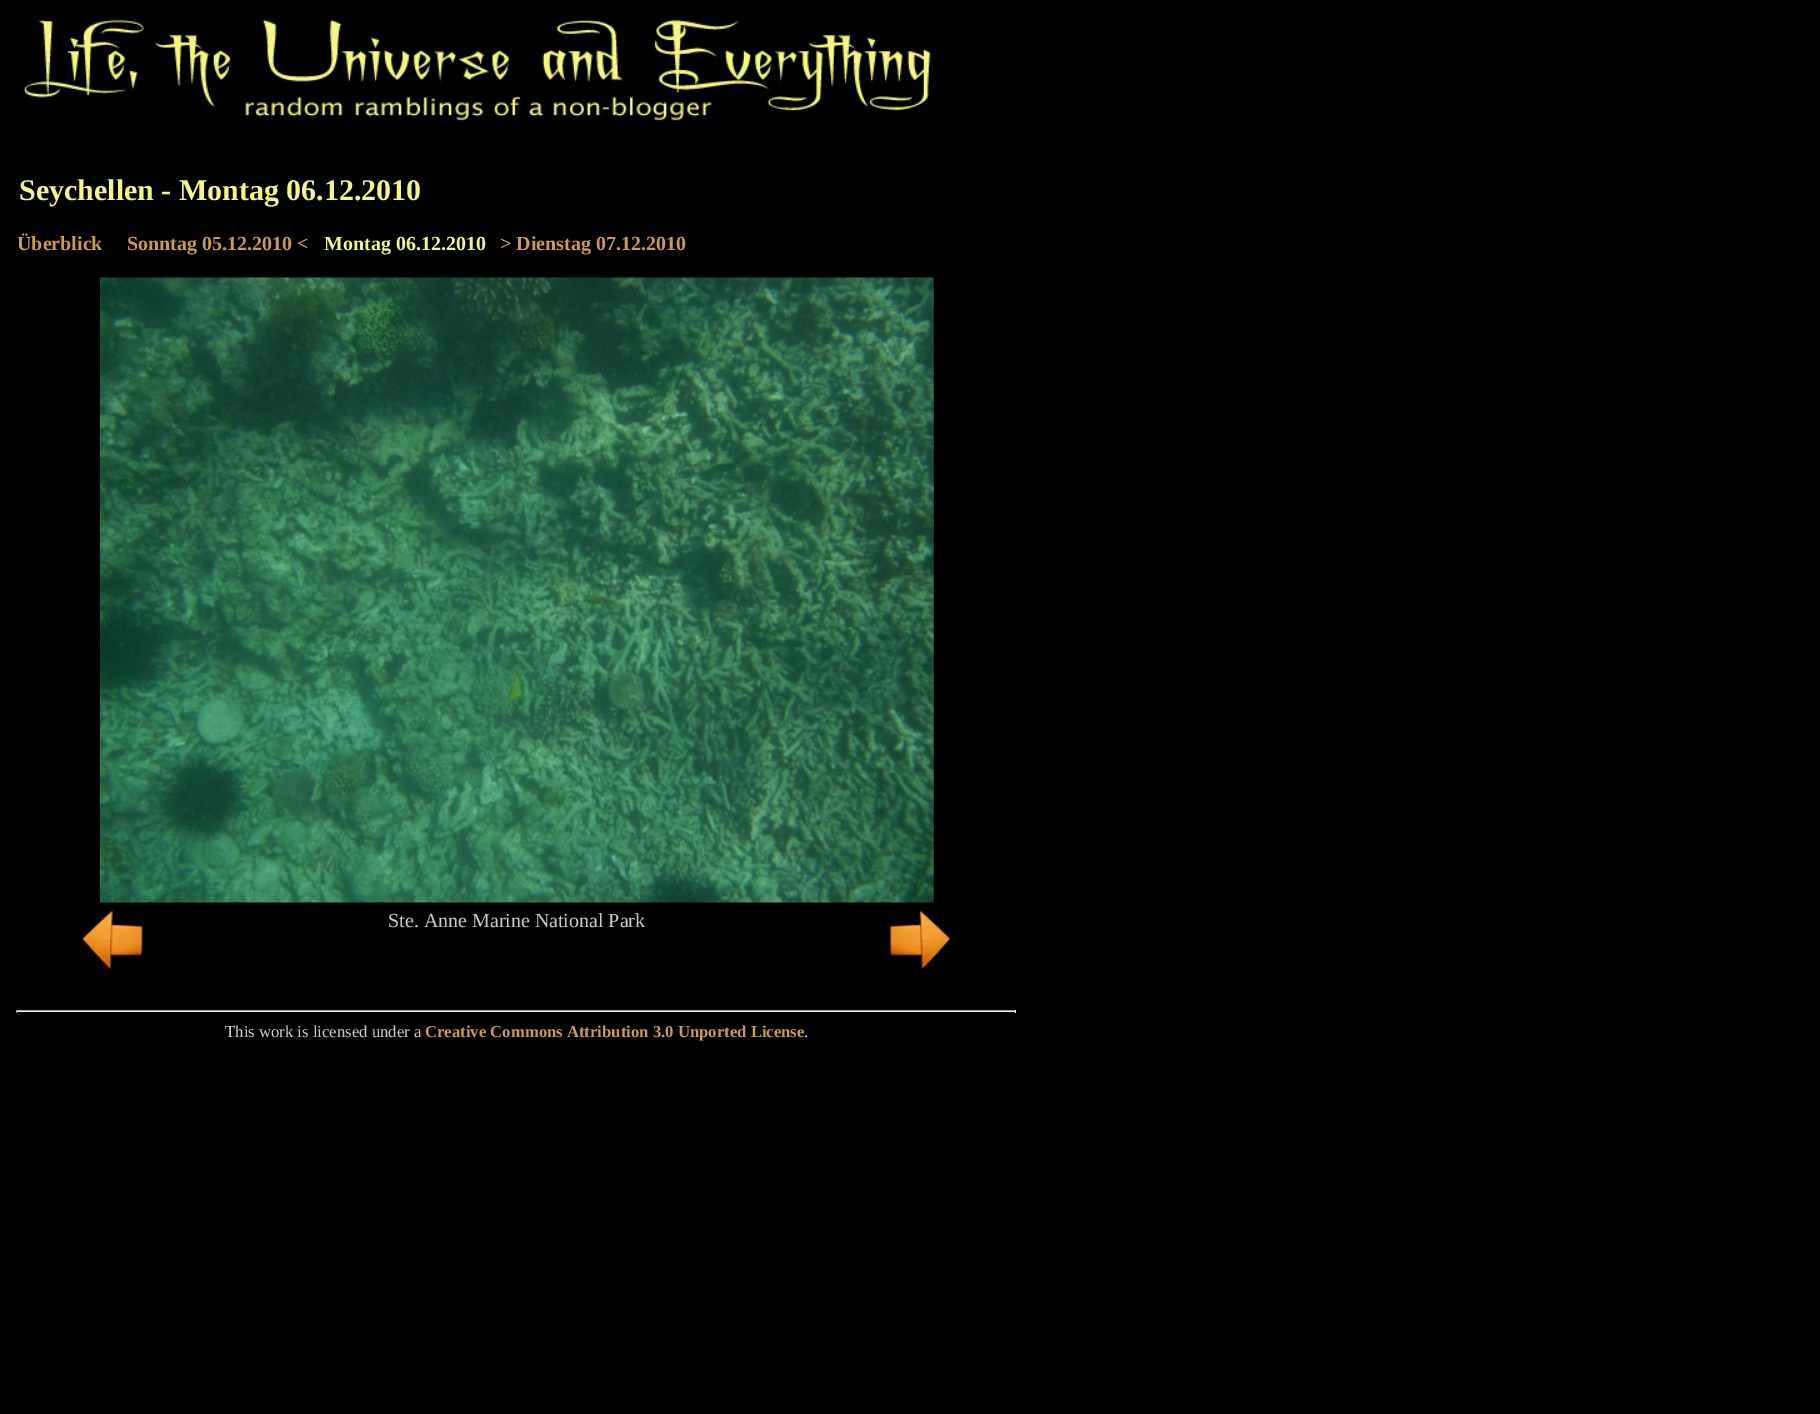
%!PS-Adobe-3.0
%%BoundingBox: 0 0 1820 1414
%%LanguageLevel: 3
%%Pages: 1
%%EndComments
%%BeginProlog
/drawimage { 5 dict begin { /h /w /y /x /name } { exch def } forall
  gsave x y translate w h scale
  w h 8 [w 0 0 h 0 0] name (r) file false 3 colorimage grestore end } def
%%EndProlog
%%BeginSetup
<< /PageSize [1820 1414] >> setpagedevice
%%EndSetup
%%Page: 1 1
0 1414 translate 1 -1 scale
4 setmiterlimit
0 setgray
0 0 1820 1414 rectfill
(images/1.raw) 23 19 908 102 drawimage
(images/2.raw) 100 277 834 626 drawimage
(images/3.raw) 82 910 61 59 drawimage
(images/4.raw) 889 910 62 59 drawimage
0.624 setgray
16 1010 1000 1 rectfill
0.933 setgray
1015 1010 1 3 rectfill
16 1011 1000 1 rectfill
0.624 setgray
16 1010 1 3 rectfill
/LiberationSerif-Bold [30 0 0 -30 0 0] selectfont
0.961 0.965 0.518 setrgbcolor
19 200 moveto (Seychellen - Montag 06.12.2010) show
/LiberationSerif-Bold [20 0 0 -20 0 0] selectfont
0.796 0.612 0.29 setrgbcolor
17 250 moveto (Überblick) show
127 250 moveto (Sonntag 05.12.2010 <) show
0.961 0.965 0.518 setrgbcolor
324 250 moveto (Montag 06.12.2010) show
0.796 0.612 0.29 setrgbcolor
500 250 moveto (> Dienstag 07.12.2010) show
/LiberationSerif-Regular [20 0 0 -20 0 0] selectfont
0.8 setgray
388 927 moveto (Ste. Anne Marine National Park) show
/LiberationSerif-Regular [16.7 0 0 -16.7 0 0] selectfont
225 1037 moveto (This work is licensed under a) show
/LiberationSerif-Bold [16.7 0 0 -16.7 0 0] selectfont
0.796 0.612 0.29 setrgbcolor
425 1037 moveto (Creative Commons Attribution 3.0 Unported License) show
/LiberationSerif-Regular [16.7 0 0 -16.7 0 0] selectfont
0.8 setgray
804 1037 moveto (.) show
showpage
%%EOF
